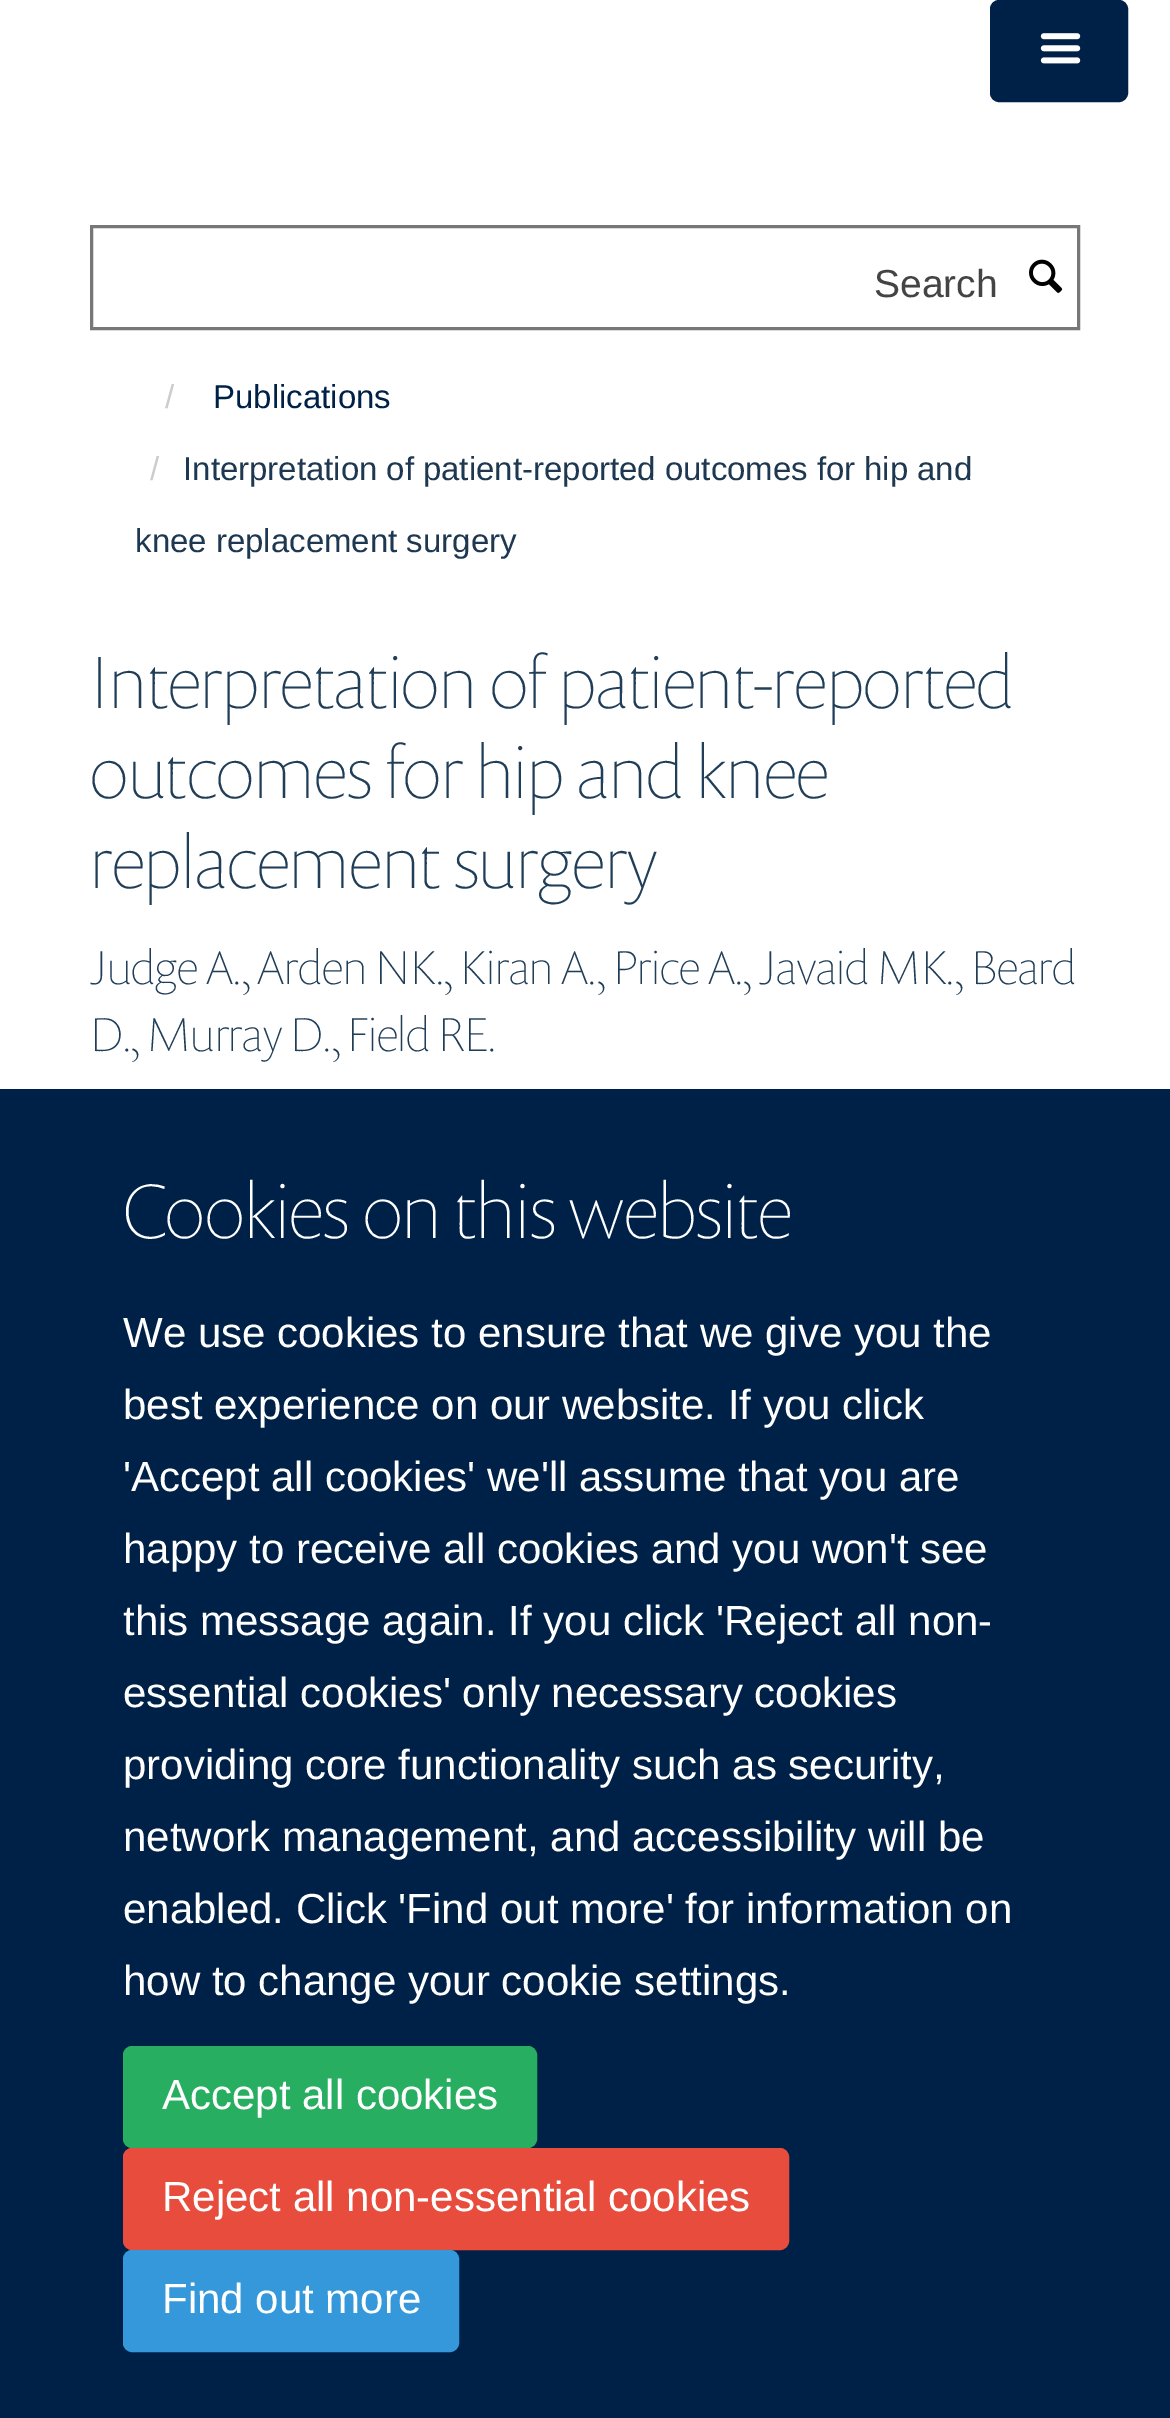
%!PS-Adobe-3.0
%%BoundingBox: 0 0 1170 2418
%%LanguageLevel: 3
%%Pages: 1
%%EndComments
%%BeginProlog
/rrect { 5 dict begin { /r /h /w /y /x } { exch def } forall
  x r add y moveto x w add y 2 copy h add r arct x w add y h add x 1 index r arct
  x y h add x y r arct x y 2 copy exch w add exch r arct closepath end } def
/drawimage { 5 dict begin { /h /w /y /x /name } { exch def } forall
  gsave x y translate w h scale
  w h 8 [w 0 0 h 0 0] name (r) file false 3 colorimage grestore end } def
%%EndProlog
%%BeginSetup
<< /PageSize [1170 2418] >> setpagedevice
%%EndSetup
%%Page: 1 1
0 2418 translate 1 -1 scale
4 setmiterlimit
1 setgray
0 0 1170 2418 rectfill
0 0.129 0.278 setrgbcolor
991.5 1.5 135 99 7.5 rrect gsave fill grestore
3 setlinewidth
stroke
(images/1.raw) 1040 33 41 31 drawimage
0.467 setgray
91.5 226.5 987 102 rectstroke
(images/2.raw) 1029 259 34 34 drawimage
0 0.129 0.278 setrgbcolor
0 1089 1170 1329 rectfill
0.153 0.682 0.376 setrgbcolor
124.5 2047.5 411 99 7.5 rrect gsave fill grestore
stroke
0.906 0.298 0.235 setrgbcolor
124.5 2149.5 663 99 7.5 rrect gsave fill grestore
stroke
0.204 0.596 0.859 setrgbcolor
124.5 2251.5 333 99 7.5 rrect gsave fill grestore
stroke
/LiberationSans-Regular [39 0 0 -39 0 0] selectfont
0.267 setgray
874 297 moveto (Search) show
/LiberationSans-Regular [33 0 0 -33 0 0] selectfont
0.8 setgray
165 408 moveto (/) show
0 0.129 0.278 setrgbcolor
213 408 moveto (Publications) show
0.8 setgray
150 480 moveto (/) show
0.114 0.22 0.314 setrgbcolor
183 480 moveto -0.25 0 32 (Interpretation of patient-reported outcomes for hip and) widthshow
135 552 moveto (knee replacement surgery) show
/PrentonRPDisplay-Thin [75 0 0 -75 0 0] selectfont
0.125 0.243 0.345 setrgbcolor
90 708 moveto (Interpretation of patient-reported) show
90 798 moveto (outcomes for hip and knee) show
90 888 moveto (replacement surgery) show
/PrentonRPDisplay-Thin [48 0 0 -48 0 0] selectfont
90 984 moveto (Judge A., Arden NK., Kiran A., Price A., Javaid MK., Beard) show
90 1051 moveto (D., Murray D., Field RE.) show
/PrentonRPDisplay-Thin [78 0 0 -78 0 0] selectfont
1 setgray
123 1238 moveto (Cookies on this website) show
/LiberationSans-Regular [42 0 0 -42 0 0] selectfont
123 1347 moveto (We use cookies to ensure that we give you the) show
123 1419 moveto (best experience on our website. If you click) show
123 1491 moveto ('Accept all cookies' we'll assume that you are) show
123 1563 moveto (happy to receive all cookies and you won't see) show
123 1635 moveto (this message again. If you click 'Reject all non-) show
123 1707 moveto (essential cookies' only necessary cookies) show
123 1779 moveto (providing core functionality such as security,) show
123 1851 moveto (network management, and accessibility will be) show
123 1923 moveto (enabled. Click 'Find out more' for information on) show
123 1995 moveto (how to change your cookie settings.) show
162 2109 moveto (Accept all cookies) show
162 2211 moveto (Reject all non-essential cookies) show
162 2313 moveto (Find out more) show
showpage
%%EOF
